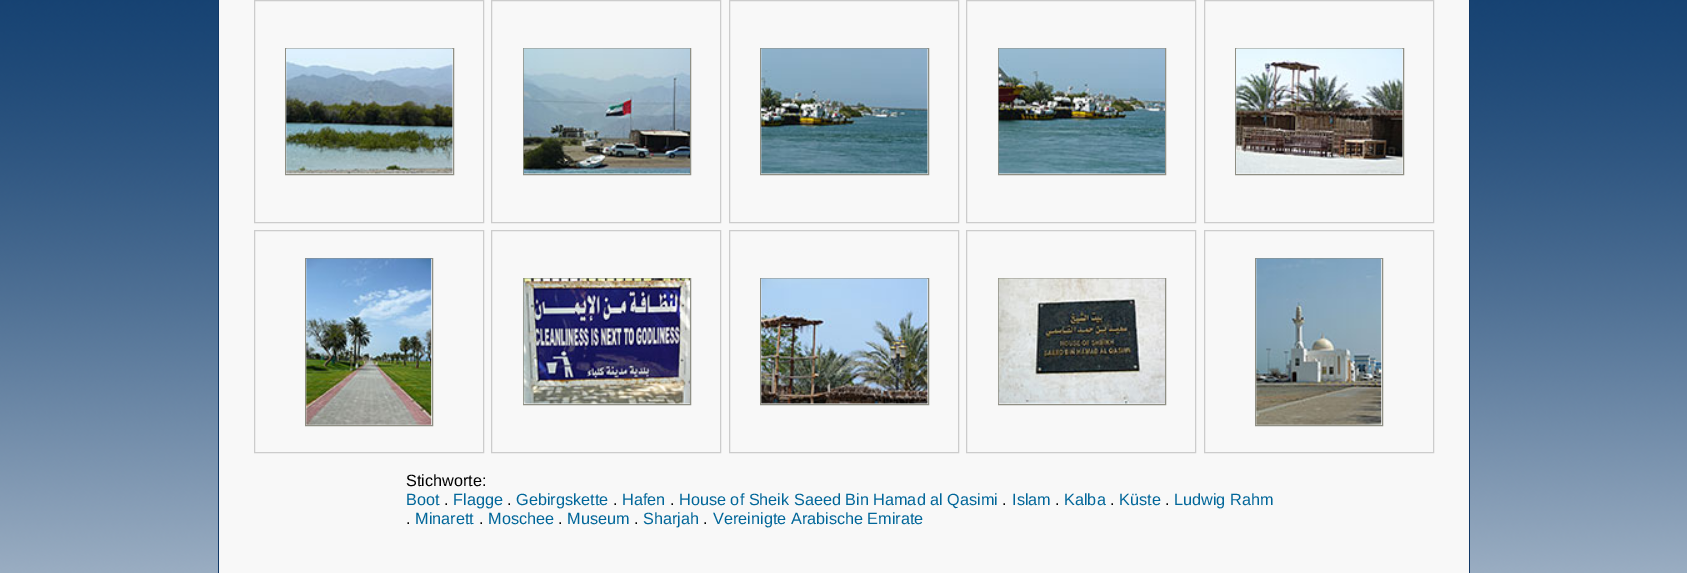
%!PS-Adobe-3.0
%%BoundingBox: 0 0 1687 573
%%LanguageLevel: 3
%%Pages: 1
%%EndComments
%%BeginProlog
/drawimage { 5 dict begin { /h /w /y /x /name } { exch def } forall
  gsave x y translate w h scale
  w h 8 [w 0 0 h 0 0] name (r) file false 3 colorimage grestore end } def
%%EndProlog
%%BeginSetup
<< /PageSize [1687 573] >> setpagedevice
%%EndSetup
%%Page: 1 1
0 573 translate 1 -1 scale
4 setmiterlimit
1 setgray
0 0 1687 573 rectfill
(images/1.raw) 0 0 1687 573 drawimage
0.973 setgray
219 0 1250 573 rectfill
0.067 0.22 0.404 setrgbcolor
1469 0 1 573 rectfill
218 0 1 573 rectfill
0.8 setgray
254.5 0.5 229 222 rectstroke
0.561 0.561 0.518 setrgbcolor
285.5 48.5 168 126 rectstroke
(images/2.raw) 286 48 167 126 drawimage
0.8 setgray
491.5 0.5 229 222 rectstroke
0.561 0.561 0.518 setrgbcolor
523.5 48.5 167 126 rectstroke
(images/3.raw) 523 48 167 126 drawimage
0.8 setgray
729.5 0.5 229 222 rectstroke
0.561 0.561 0.518 setrgbcolor
760.5 48.5 168 126 rectstroke
(images/4.raw) 761 48 167 126 drawimage
0.8 setgray
966.5 0.5 229 222 rectstroke
0.561 0.561 0.518 setrgbcolor
998.5 48.5 167 126 rectstroke
(images/5.raw) 998 48 167 126 drawimage
0.8 setgray
1204.5 0.5 229 222 rectstroke
0.561 0.561 0.518 setrgbcolor
1235.5 48.5 168 126 rectstroke
(images/6.raw) 1236 48 167 126 drawimage
0.8 setgray
254.5 230.5 229 222 rectstroke
0.561 0.561 0.518 setrgbcolor
305.5 258.5 127 167 rectstroke
(images/7.raw) 306 258 126 167 drawimage
0.8 setgray
491.5 230.5 229 222 rectstroke
0.561 0.561 0.518 setrgbcolor
523.5 278.5 167 126 rectstroke
(images/8.raw) 523 278 167 126 drawimage
0.8 setgray
729.5 230.5 229 222 rectstroke
0.561 0.561 0.518 setrgbcolor
760.5 278.5 168 126 rectstroke
(images/9.raw) 761 278 167 126 drawimage
0.8 setgray
966.5 230.5 229 222 rectstroke
0.561 0.561 0.518 setrgbcolor
998.5 278.5 167 126 rectstroke
(images/10.raw) 998 278 167 126 drawimage
0.8 setgray
1204.5 230.5 229 222 rectstroke
0.561 0.561 0.518 setrgbcolor
1255.5 258.5 127 167 rectstroke
(images/11.raw) 1256 258 126 167 drawimage
/LiberationSans-Regular [16.25 0 0 -16.25 0 0] selectfont
0 setgray
406 486 moveto (Stichworte:) show
0 0.4 0.6 setrgbcolor
406 505 moveto (Boot) show
0 setgray
444 505 moveto (.) show
0 0.4 0.6 setrgbcolor
453 505 moveto (Flagge) show
0 setgray
507 505 moveto (.) show
0 0.4 0.6 setrgbcolor
516 505 moveto (Gebirgskette) show
0 setgray
613 505 moveto (.) show
0 0.4 0.6 setrgbcolor
622 505 moveto (Hafen) show
0 setgray
670 505 moveto (.) show
0 0.4 0.6 setrgbcolor
679 505 moveto (House of Sheik Saeed Bin Hamad al Qasimi) show
0 setgray
1002 505 moveto (.) show
0 0.4 0.6 setrgbcolor
1012 505 moveto (Islam) show
0 setgray
1055 505 moveto (.) show
0 0.4 0.6 setrgbcolor
1064 505 moveto (Kalba) show
0 setgray
1110 505 moveto (.) show
0 0.4 0.6 setrgbcolor
1119 505 moveto (Küste) show
0 setgray
1165 505 moveto (.) show
0 0.4 0.6 setrgbcolor
1174 505 moveto (Ludwig Rahm) show
0 setgray
406 524 moveto (.) show
0 0.4 0.6 setrgbcolor
415 524 moveto (Minarett) show
0 setgray
479 524 moveto (.) show
0 0.4 0.6 setrgbcolor
488 524 moveto (Moschee) show
0 setgray
558 524 moveto (.) show
0 0.4 0.6 setrgbcolor
567 524 moveto (Museum) show
0 setgray
634 524 moveto (.) show
0 0.4 0.6 setrgbcolor
643 524 moveto (Sharjah) show
0 setgray
703 524 moveto (.) show
0 0.4 0.6 setrgbcolor
713 524 moveto (Vereinigte Arabische Emirate) show
showpage
%%EOF
